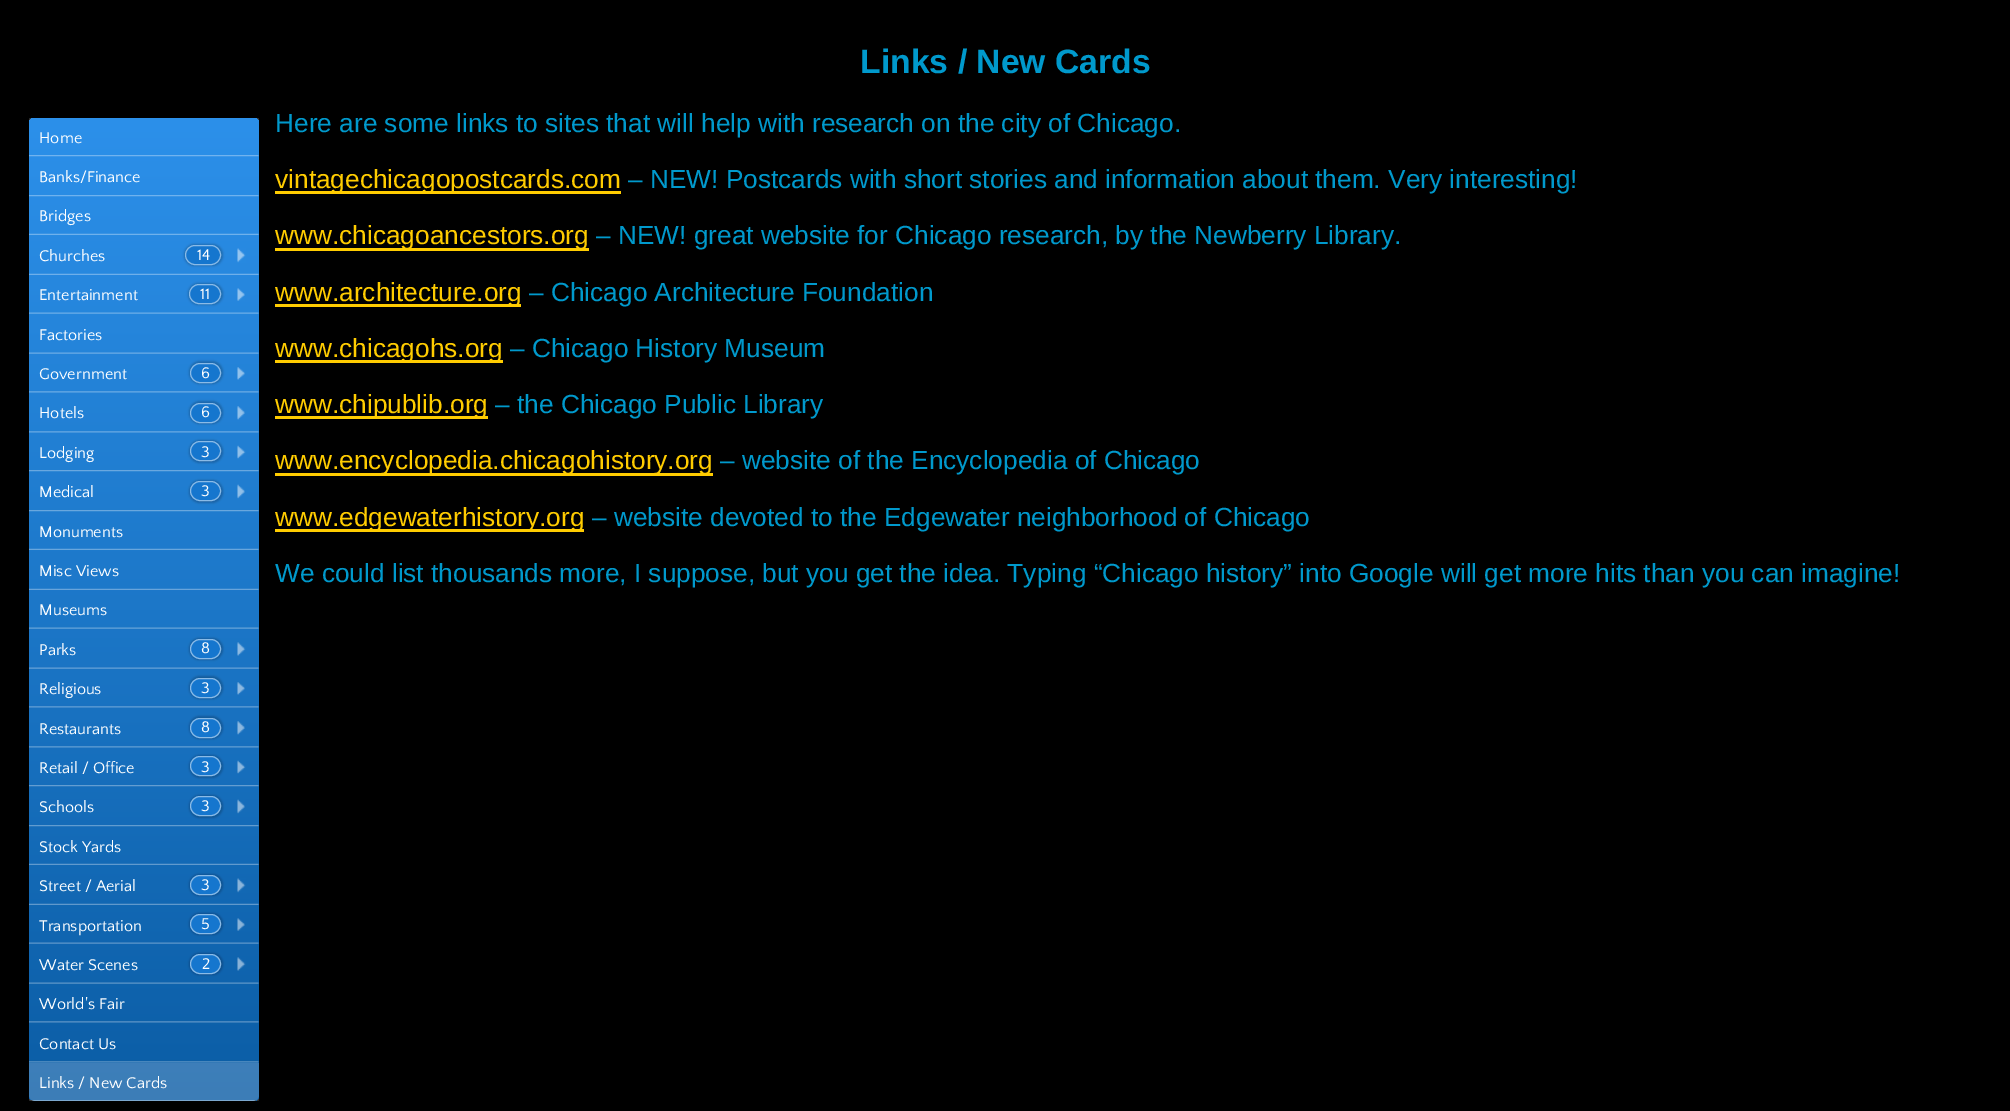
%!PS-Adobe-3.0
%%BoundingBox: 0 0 2010 1111
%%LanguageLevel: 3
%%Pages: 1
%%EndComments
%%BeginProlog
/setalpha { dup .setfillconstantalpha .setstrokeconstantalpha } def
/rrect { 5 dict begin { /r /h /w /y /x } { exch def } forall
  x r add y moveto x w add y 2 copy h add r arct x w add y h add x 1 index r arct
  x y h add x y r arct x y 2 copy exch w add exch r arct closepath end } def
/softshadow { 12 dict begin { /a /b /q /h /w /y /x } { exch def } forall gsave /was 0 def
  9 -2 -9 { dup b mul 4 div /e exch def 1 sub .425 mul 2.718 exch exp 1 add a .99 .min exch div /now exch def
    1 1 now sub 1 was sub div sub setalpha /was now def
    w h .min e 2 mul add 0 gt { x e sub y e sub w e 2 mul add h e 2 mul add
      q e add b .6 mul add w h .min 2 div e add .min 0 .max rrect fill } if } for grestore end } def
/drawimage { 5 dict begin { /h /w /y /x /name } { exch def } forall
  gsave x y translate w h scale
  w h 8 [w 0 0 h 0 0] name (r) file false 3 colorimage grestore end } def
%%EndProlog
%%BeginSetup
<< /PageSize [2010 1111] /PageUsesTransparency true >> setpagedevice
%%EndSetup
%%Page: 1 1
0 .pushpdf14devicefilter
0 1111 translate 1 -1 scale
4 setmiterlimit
0 setgray
0 0 2010 1111 rectfill
gsave
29 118 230 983 rectclip
0.733 setgray
29 118 230 983 6 3 1 softshadow
grestore
gsave 29 118 230 983 6 rrect clip newpath
<< /ShadingType 2 /ColorSpace /DeviceRGB /Coords [29 1101 29 118] /Extend [true true] /Function << /FunctionType 2 /Domain [0 1] /C0 [0.043 0.365 0.647] /C1 [0.173 0.565 0.918] /N 1 >> >> shfill grestore
(images/1.raw) 29 155 230 2 drawimage
(images/2.raw) 29 195 230 2 drawimage
(images/3.raw) 29 233 230 2 drawimage
(images/4.raw) 29 273 230 2 drawimage
(images/5.raw) 237 248 9 15 drawimage
184 244 39 22 11 1 0.2 softshadow
0.082 0.463 0.808 setrgbcolor
185 245 36 20 10 rrect fill
0.5 setalpha
1 setgray
185.5 245.5 35 19 9.5 rrect stroke
1 setalpha
(images/6.raw) 29 312 230 2 drawimage
(images/7.raw) 237 288 8 13 drawimage
0 setgray
188 283 35 22 11 1 0.2 softshadow
0.082 0.463 0.808 setrgbcolor
189 284 32 20 10 rrect fill
0.5 setalpha
1 setgray
189.5 284.5 31 19 9.5 rrect stroke
1 setalpha
(images/8.raw) 29 352 230 2 drawimage
(images/9.raw) 29 391 230 2 drawimage
(images/10.raw) 237 367 8 13 drawimage
0 setgray
189 361 34 23 11.5 1 0.2 softshadow
0.082 0.463 0.808 setrgbcolor
190 363 31 20 10 rrect fill
0.5 setalpha
1 setgray
190.5 363.5 30 19 9.5 rrect stroke
1 setalpha
(images/11.raw) 29 431 230 2 drawimage
(images/12.raw) 237 406 8 14 drawimage
0 setgray
189 401 34 23 11.5 1 0.2 softshadow
0.082 0.463 0.808 setrgbcolor
190 403 31 20 10 rrect fill
0.5 setalpha
1 setgray
190.5 403.5 30 19 9.5 rrect stroke
1 setalpha
(images/13.raw) 29 470 230 2 drawimage
(images/14.raw) 237 445 9 14 drawimage
0 setgray
189 440 34 23 11.5 1 0.2 softshadow
0.082 0.463 0.808 setrgbcolor
190 441 31 20 10 rrect fill
0.5 setalpha
1 setgray
190.5 441.5 30 19 9.5 rrect stroke
1 setalpha
(images/15.raw) 29 510 230 2 drawimage
(images/16.raw) 237 484 8 15 drawimage
0 setgray
189 480 34 23 11.5 1 0.2 softshadow
0.082 0.463 0.808 setrgbcolor
190 481 31 20 10 rrect fill
0.5 setalpha
1 setgray
190.5 481.5 30 19 9.5 rrect stroke
1 setalpha
(images/17.raw) 29 548 230 2 drawimage
(images/18.raw) 29 588 230 2 drawimage
(images/19.raw) 29 627 230 2 drawimage
(images/20.raw) 29 667 230 2 drawimage
(images/21.raw) 237 642 9 14 drawimage
0 setgray
189 638 34 22 11 1 0.2 softshadow
0.082 0.463 0.808 setrgbcolor
190 639 31 20 10 rrect fill
0.5 setalpha
1 setgray
190.5 639.5 30 19 9.5 rrect stroke
1 setalpha
(images/22.raw) 29 706 230 2 drawimage
(images/23.raw) 237 682 8 13 drawimage
0 setgray
189 676 34 23 11.5 1 0.2 softshadow
0.082 0.463 0.808 setrgbcolor
190 678 31 20 10 rrect fill
0.5 setalpha
1 setgray
190.5 678.5 30 19 9.5 rrect stroke
1 setalpha
(images/24.raw) 29 746 230 2 drawimage
(images/25.raw) 237 721 8 14 drawimage
0 setgray
189 716 34 23 11.5 1 0.2 softshadow
0.082 0.463 0.808 setrgbcolor
190 718 31 20 10 rrect fill
0.5 setalpha
1 setgray
190.5 718.5 30 19 9.5 rrect stroke
1 setalpha
(images/26.raw) 29 785 230 2 drawimage
(images/27.raw) 237 760 9 14 drawimage
0 setgray
189 755 34 23 11.5 1 0.2 softshadow
0.082 0.463 0.808 setrgbcolor
190 756 31 20 10 rrect fill
0.5 setalpha
1 setgray
190.5 756.5 30 19 9.5 rrect stroke
1 setalpha
(images/28.raw) 29 825 230 2 drawimage
(images/29.raw) 237 799 8 15 drawimage
0 setgray
189 795 34 23 11.5 1 0.2 softshadow
0.082 0.463 0.808 setrgbcolor
190 796 31 20 10 rrect fill
0.5 setalpha
1 setgray
190.5 796.5 30 19 9.5 rrect stroke
1 setalpha
(images/30.raw) 29 863 230 2 drawimage
(images/31.raw) 29 903 230 2 drawimage
(images/32.raw) 237 878 9 15 drawimage
0 setgray
189 874 34 22 11 1 0.2 softshadow
0.082 0.463 0.808 setrgbcolor
190 875 31 20 10 rrect fill
0.5 setalpha
1 setgray
190.5 875.5 30 19 9.5 rrect stroke
1 setalpha
(images/33.raw) 29 942 230 2 drawimage
(images/34.raw) 237 918 8 13 drawimage
0 setgray
189 913 34 22 11 1 0.2 softshadow
0.082 0.463 0.808 setrgbcolor
190 914 31 20 10 rrect fill
0.5 setalpha
1 setgray
190.5 914.5 30 19 9.5 rrect stroke
1 setalpha
(images/35.raw) 29 982 230 2 drawimage
(images/36.raw) 237 957 9 14 drawimage
0 setgray
189 953 34 22 11 1 0.2 softshadow
0.082 0.463 0.808 setrgbcolor
190 954 31 20 10 rrect fill
0.5 setalpha
1 setgray
190.5 954.5 30 19 9.5 rrect stroke
1 setalpha
(images/37.raw) 29 1021 230 2 drawimage
(images/38.raw) 29 1061 230 2 drawimage
0.2 setalpha
newpath 29 1063 moveto 259 1063 lineto 259 1095 lineto 259 1098.5 256.5 1101 253 1101 curveto 35 1101 lineto 31.5 1101 29 1098.5 29 1095 curveto closepath fill
1 setalpha
(images/39.raw) 31 1100 225 1 drawimage
1 0.8 0 setrgbcolor
275 191 346 3 rectfill
275 248 314 3 rectfill
275 304 246 3 rectfill
275 360 228 3 rectfill
275 416 213 3 rectfill
275 473 438 3 rectfill
275 529 309 3 rectfill
/LiberationSans-Bold [33.75 0 0 -33.75 0 0] selectfont
0 0.6 0.8 setrgbcolor
860 73 moveto (Links / New Cards) show
/QuattrocentoSans-Regular [16.25 0 0 -16.25 0 0] selectfont
1 setgray
39 143 moveto (Home) show
39 182 moveto (Banks/Finance) show
39 221 moveto (Bridges) show
39 261 moveto (Churches) show
197 260 moveto (14) show
39 300 moveto (Entertainment) show
200 299 moveto (11) show
39 340 moveto (Factories) show
39 379 moveto (Government) show
201 378 moveto (6) show
39 418 moveto (Hotels) show
201 417 moveto (6) show
39 458 moveto (Lodging) show
201 457 moveto (3) show
39 497 moveto (Medical) show
201 496 moveto (3) show
39 537 moveto (Monuments) show
39 576 moveto (Misc Views) show
39 615 moveto (Museums) show
39 655 moveto (Parks) show
201 653 moveto (8) show
39 694 moveto (Religious) show
201 693 moveto (3) show
39 734 moveto (Restaurants) show
201 732 moveto (8) show
39 773 moveto (Retail / Office) show
201 772 moveto (3) show
39 812 moveto (Schools) show
201 811 moveto (3) show
39 852 moveto (Stock Yards) show
39 891 moveto (Street / Aerial) show
201 890 moveto (3) show
39 931 moveto (Transportation) show
201 929 moveto (5) show
39 970 moveto (Water Scenes) show
202 969 moveto (2) show
39 1009 moveto (World's Fair) show
39 1049 moveto (Contact Us) show
39 1088 moveto (Links / New Cards) show
/LiberationSans-Regular [26.25 0 0 -26.25 0 0] selectfont
0 0.6 0.8 setrgbcolor
275 132 moveto (Here are some links to sites that will help with research on the city of Chicago.) show
1 0.8 0 setrgbcolor
275 188 moveto (vintagechicagopostcards.com) show
0 0.6 0.8 setrgbcolor
628 188 moveto (– NEW! Postcards with short stories and information about them. Very interesting!) show
1 0.8 0 setrgbcolor
275 244 moveto (www.chicagoancestors.org) show
0 0.6 0.8 setrgbcolor
596 244 moveto (– NEW! great website for Chicago research, by the Newberry Library.) show
1 0.8 0 setrgbcolor
275 301 moveto (www.architecture.org) show
0 0.6 0.8 setrgbcolor
529 301 moveto (– Chicago Architecture Foundation) show
1 0.8 0 setrgbcolor
275 357 moveto (www.chicagohs.org) show
0 0.6 0.8 setrgbcolor
510 357 moveto (– Chicago History Museum) show
1 0.8 0 setrgbcolor
275 413 moveto (www.chipublib.org) show
0 0.6 0.8 setrgbcolor
495 413 moveto (– the Chicago Public Library) show
1 0.8 0 setrgbcolor
275 469 moveto (www.encyclopedia.chicagohistory.org) show
0 0.6 0.8 setrgbcolor
720 469 moveto (– website of the Encyclopedia of Chicago) show
1 0.8 0 setrgbcolor
275 526 moveto (www.edgewaterhistory.org) show
0 0.6 0.8 setrgbcolor
592 526 moveto (– website devoted to the Edgewater neighborhood of Chicago) show
275 582 moveto (We could list thousands more, I suppose, but you get the idea. Typing “Chicago history” into Google will get more hits than you can imagine!) show
.poppdf14devicefilter showpage
%%EOF
